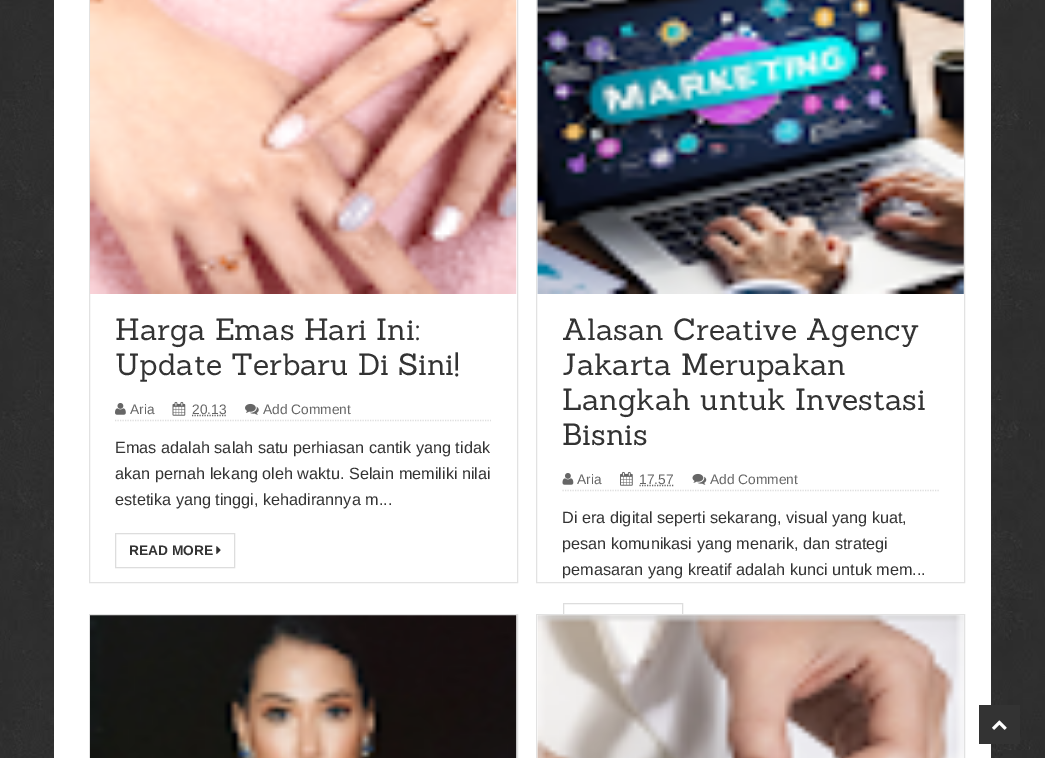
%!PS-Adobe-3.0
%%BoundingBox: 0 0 1045 758
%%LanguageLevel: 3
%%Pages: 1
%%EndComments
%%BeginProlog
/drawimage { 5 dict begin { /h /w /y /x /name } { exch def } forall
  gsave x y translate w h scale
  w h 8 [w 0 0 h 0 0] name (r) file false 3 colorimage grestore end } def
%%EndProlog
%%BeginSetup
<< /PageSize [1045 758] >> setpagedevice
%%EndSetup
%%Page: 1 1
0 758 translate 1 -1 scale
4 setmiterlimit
1 setgray
0 0 1045 758 rectfill
(images/1.raw) 0 0 1045 758 drawimage
54 0 937 758 rectfill
0.886 setgray
89.5 -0.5 428 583 rectstroke
(images/2.raw) 90 0 427 294 drawimage
0.871 setgray
1.2 setlinewidth
[1.25 1.25] 0 setdash
newpath 115 420.5 moveto 491 420.5 lineto stroke
(images/3.raw) 115 403 11 12 drawimage
(images/4.raw) 172 401 14 15 drawimage
0.4 setgray
newpath 192 415.5 moveto 226.5 415.5 lineto stroke
(images/5.raw) 245 403 14 12 drawimage
0.867 setgray
1 setlinewidth
[] 0 setdash
115.5 533.5 119 34 rectstroke
(images/6.raw) 216 546 5 8 drawimage
0.886 setgray
536.5 -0.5 428 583 rectstroke
(images/7.raw) 537 0 427 294 drawimage
0.871 setgray
1.2 setlinewidth
[1.25 1.25] 0 setdash
newpath 562.5 490.5 moveto 939 490.5 lineto stroke
(images/8.raw) 562 473 12 12 drawimage
(images/9.raw) 620 471 13 15 drawimage
0.4 setgray
newpath 639.5 485.5 moveto 674 485.5 lineto stroke
(images/10.raw) 692 473 15 12 drawimage
0.867 setgray
1 setlinewidth
[] 0 setdash
563.5 603.5 119 34 rectstroke
0.886 setgray
89.5 614.5 428 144 rectstroke
(images/11.raw) 90 615 427 143 drawimage
536.5 614.5 428 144 rectstroke
0.984 setgray
538 615 426 143 rectfill
(images/12.raw) 537 615 427 143 drawimage
0.2 setgray
979 705 41 39 rectfill
(images/13.raw) 992 720 15 10 drawimage
/Sanchez-Regular [30 0 0 -30 0 0] selectfont
115 340 moveto (Harga Emas Hari Ini:) show
115 375 moveto (Update Terbaru Di Sini!) show
/LiberationSans-Regular [13.75 0 0 -13.75 0 0] selectfont
0.4 setgray
130 414 moveto (Aria) show
192 414 moveto (20.13) show
263 414 moveto (Add Comment) show
/LiberationSans-Regular [16.25 0 0 -16.25 0 0] selectfont
0.2 setgray
115 453 moveto (Emas adalah salah satu perhiasan cantik yang tidak) show
115 479 moveto (akan pernah lekang oleh waktu. Selain memiliki nilai) show
115 505 moveto (estetika yang tinggi, kehadirannya m...) show
/LiberationSans-Bold [13.75 0 0 -13.75 0 0] selectfont
129 555 moveto (READ MORE) show
/Sanchez-Regular [30 0 0 -30 0 0] selectfont
562 340 moveto (Alasan Creative Agency) show
562 375 moveto (Jakarta Merupakan) show
562 410 moveto (Langkah untuk Investasi) show
562 445 moveto (Bisnis) show
/LiberationSans-Regular [13.75 0 0 -13.75 0 0] selectfont
0.4 setgray
577 484 moveto (Aria) show
639 484 moveto (17.57) show
710 484 moveto (Add Comment) show
/LiberationSans-Regular [16.25 0 0 -16.25 0 0] selectfont
0.2 setgray
562 523 moveto (Di era digital seperti sekarang, visual yang kuat,) show
562 549 moveto (pesan komunikasi yang menarik, dan strategi) show
562 575 moveto (pemasaran yang kreatif adalah kunci untuk mem...) show
showpage
%%EOF
